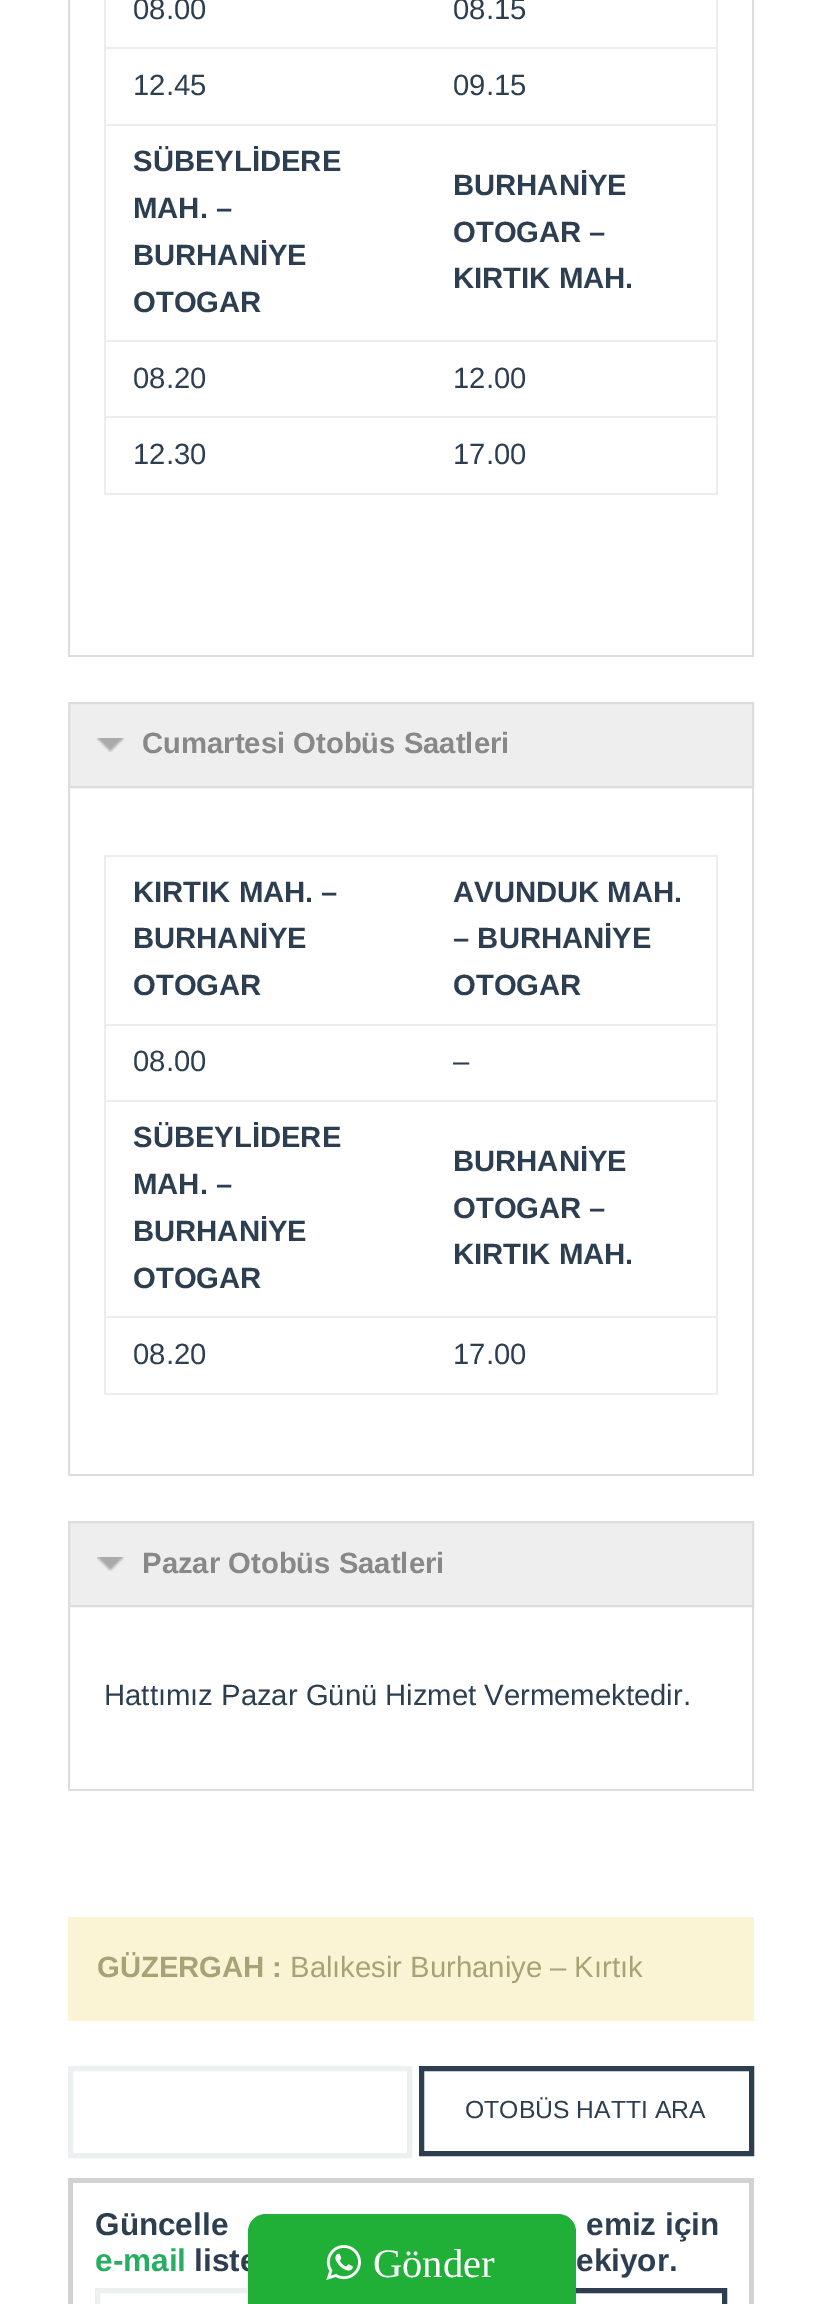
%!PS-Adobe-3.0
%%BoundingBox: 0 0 820 2304
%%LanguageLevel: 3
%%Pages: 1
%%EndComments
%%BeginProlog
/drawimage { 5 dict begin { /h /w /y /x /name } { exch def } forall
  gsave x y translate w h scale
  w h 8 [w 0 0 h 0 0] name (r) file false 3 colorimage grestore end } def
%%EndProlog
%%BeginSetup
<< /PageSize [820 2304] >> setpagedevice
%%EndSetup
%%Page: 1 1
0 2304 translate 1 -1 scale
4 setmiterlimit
1 setgray
0 0 820 2304 rectfill
0.867 setgray
752 0 2 657 rectfill
68 655 686 2 rectfill
68 0 2 657 rectfill
0.929 setgray
716 0 2 495 rectfill
104 493 614 2 rectfill
104 0 2 495 rectfill
104 47 614 2 rectfill
104 124 614 2 rectfill
104 340 614 2 rectfill
104 416 614 2 rectfill
0.933 setgray
newpath 69 703 moveto 753 703 lineto 753 787 lineto 69 787 lineto closepath gsave fill grestore
0.867 setgray
2 setlinewidth
stroke
(images/1.raw) 97 738 27 14 drawimage
752 788 2 688 rectfill
68 1474 686 2 rectfill
68 788 2 688 rectfill
0.929 setgray
104 855 614 2 rectfill
716 855 2 540 rectfill
104 1393 614 2 rectfill
104 855 2 540 rectfill
104 1024 614 2 rectfill
104 1100 614 2 rectfill
104 1316 614 2 rectfill
0.933 setgray
newpath 69 1522 moveto 753 1522 lineto 753 1606 lineto 69 1606 lineto closepath gsave fill grestore
0.867 setgray
stroke
(images/1.raw) 97 1557 27 14 drawimage
752 1607 2 184 rectfill
68 1789 686 2 rectfill
68 1607 2 184 rectfill
0.98 0.953 0.831 setrgbcolor
68 1917 686 104 rectfill
0.925 0.941 0.945 setrgbcolor
5 setlinewidth
70.5 2068.5 339 87 rectstroke
0.173 0.243 0.314 setrgbcolor
421.5 2068.5 330 85 rectstroke
0.824 setgray
68 2178 686 5 rectfill
749 2178 5 126 rectfill
68 2178 5 126 rectfill
0.925 0.941 0.945 setrgbcolor
97.5 2290.5 406 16 rectstroke
0.173 0.243 0.314 setrgbcolor
515.5 2290.5 209 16 rectstroke
/LiberationSans-Regular [29.25 0 0 -29.25 0 0] selectfont
133 19 moveto (08.00) show
453 19 moveto (08.15) show
133 95 moveto (12.45) show
453 95 moveto (09.15) show
/LiberationSans-Bold [29.25 0 0 -29.25 0 0] selectfont
133 171 moveto (SÜBEYLİDERE) show
133 218 moveto (MAH. –) show
133 265 moveto (BURHANİYE) show
133 312 moveto (OTOGAR) show
453 195 moveto (BURHANİYE) show
453 242 moveto (OTOGAR –) show
453 288 moveto (KIRTIK MAH.) show
/LiberationSans-Regular [29.25 0 0 -29.25 0 0] selectfont
133 388 moveto (08.20) show
453 388 moveto (12.00) show
133 464 moveto (12.30) show
453 464 moveto (17.00) show
/LiberationSans-Bold [29.25 0 0 -29.25 0 0] selectfont
0.533 setgray
142 753 moveto (Cumartesi Otobüs Saatleri) show
0.173 0.243 0.314 setrgbcolor
133 902 moveto (KIRTIK MAH. –) show
133 948 moveto (BURHANİYE) show
133 995 moveto (OTOGAR) show
453 902 moveto (AVUNDUK MAH.) show
453 948 moveto (– BURHANİYE) show
453 995 moveto (OTOGAR) show
/LiberationSans-Regular [29.25 0 0 -29.25 0 0] selectfont
133 1071 moveto (08.00) show
453 1071 moveto (–) show
/LiberationSans-Bold [29.25 0 0 -29.25 0 0] selectfont
133 1147 moveto (SÜBEYLİDERE) show
133 1194 moveto (MAH. –) show
133 1241 moveto (BURHANİYE) show
133 1288 moveto (OTOGAR) show
453 1171 moveto (BURHANİYE) show
453 1218 moveto (OTOGAR –) show
453 1264 moveto (KIRTIK MAH.) show
/LiberationSans-Regular [29.25 0 0 -29.25 0 0] selectfont
133 1364 moveto (08.20) show
453 1364 moveto (17.00) show
/LiberationSans-Bold [29.25 0 0 -29.25 0 0] selectfont
0.533 setgray
142 1573 moveto (Pazar Otobüs Saatleri) show
/LiberationSans-Regular [29.25 0 0 -29.25 0 0] selectfont
0.173 0.243 0.314 setrgbcolor
104 1705 moveto (Hattımız Pazar Günü Hizmet Vermemektedir.) show
/LiberationSans-Bold [29.25 0 0 -29.25 0 0] selectfont
0.651 0.639 0.467 setrgbcolor
97 1977 moveto (GÜZERGAH :) show
/LiberationSans-Regular [29.25 0 0 -29.25 0 0] selectfont
290 1977 moveto (Balıkesir Burhaniye – Kırtık) show
/LiberationSans-Regular [24.75 0 0 -24.75 0 0] selectfont
0.173 0.243 0.314 setrgbcolor
465 2118 moveto (OTOBÜS HATTI ARA) show
/LiberationSans-Bold [31.5 0 0 -31.5 0 0] selectfont
95 2235 moveto (Güncelle) show
586 2235 moveto (emiz için) show
0.153 0.682 0.376 setrgbcolor
95 2271 moveto (e-mail) show
0.173 0.243 0.314 setrgbcolor
194 2271 moveto (liste) show
576 2271 moveto (ekiyor.) show
0.125 0.69 0.22 setrgbcolor
newpath 266 2214 moveto 558 2214 lineto 568 2214 576 2222 576 2232 curveto 576 2304 lineto 248 2304 lineto 248 2232 lineto 248 2222 256 2214 266 2214 curveto closepath fill
(images/2.raw) 326 2245 35 35 drawimage
/LiberationSerif-Regular [40.5 0 0 -40.5 0 0] selectfont
1 setgray
373 2277 moveto (Gönder) show
showpage
%%EOF
